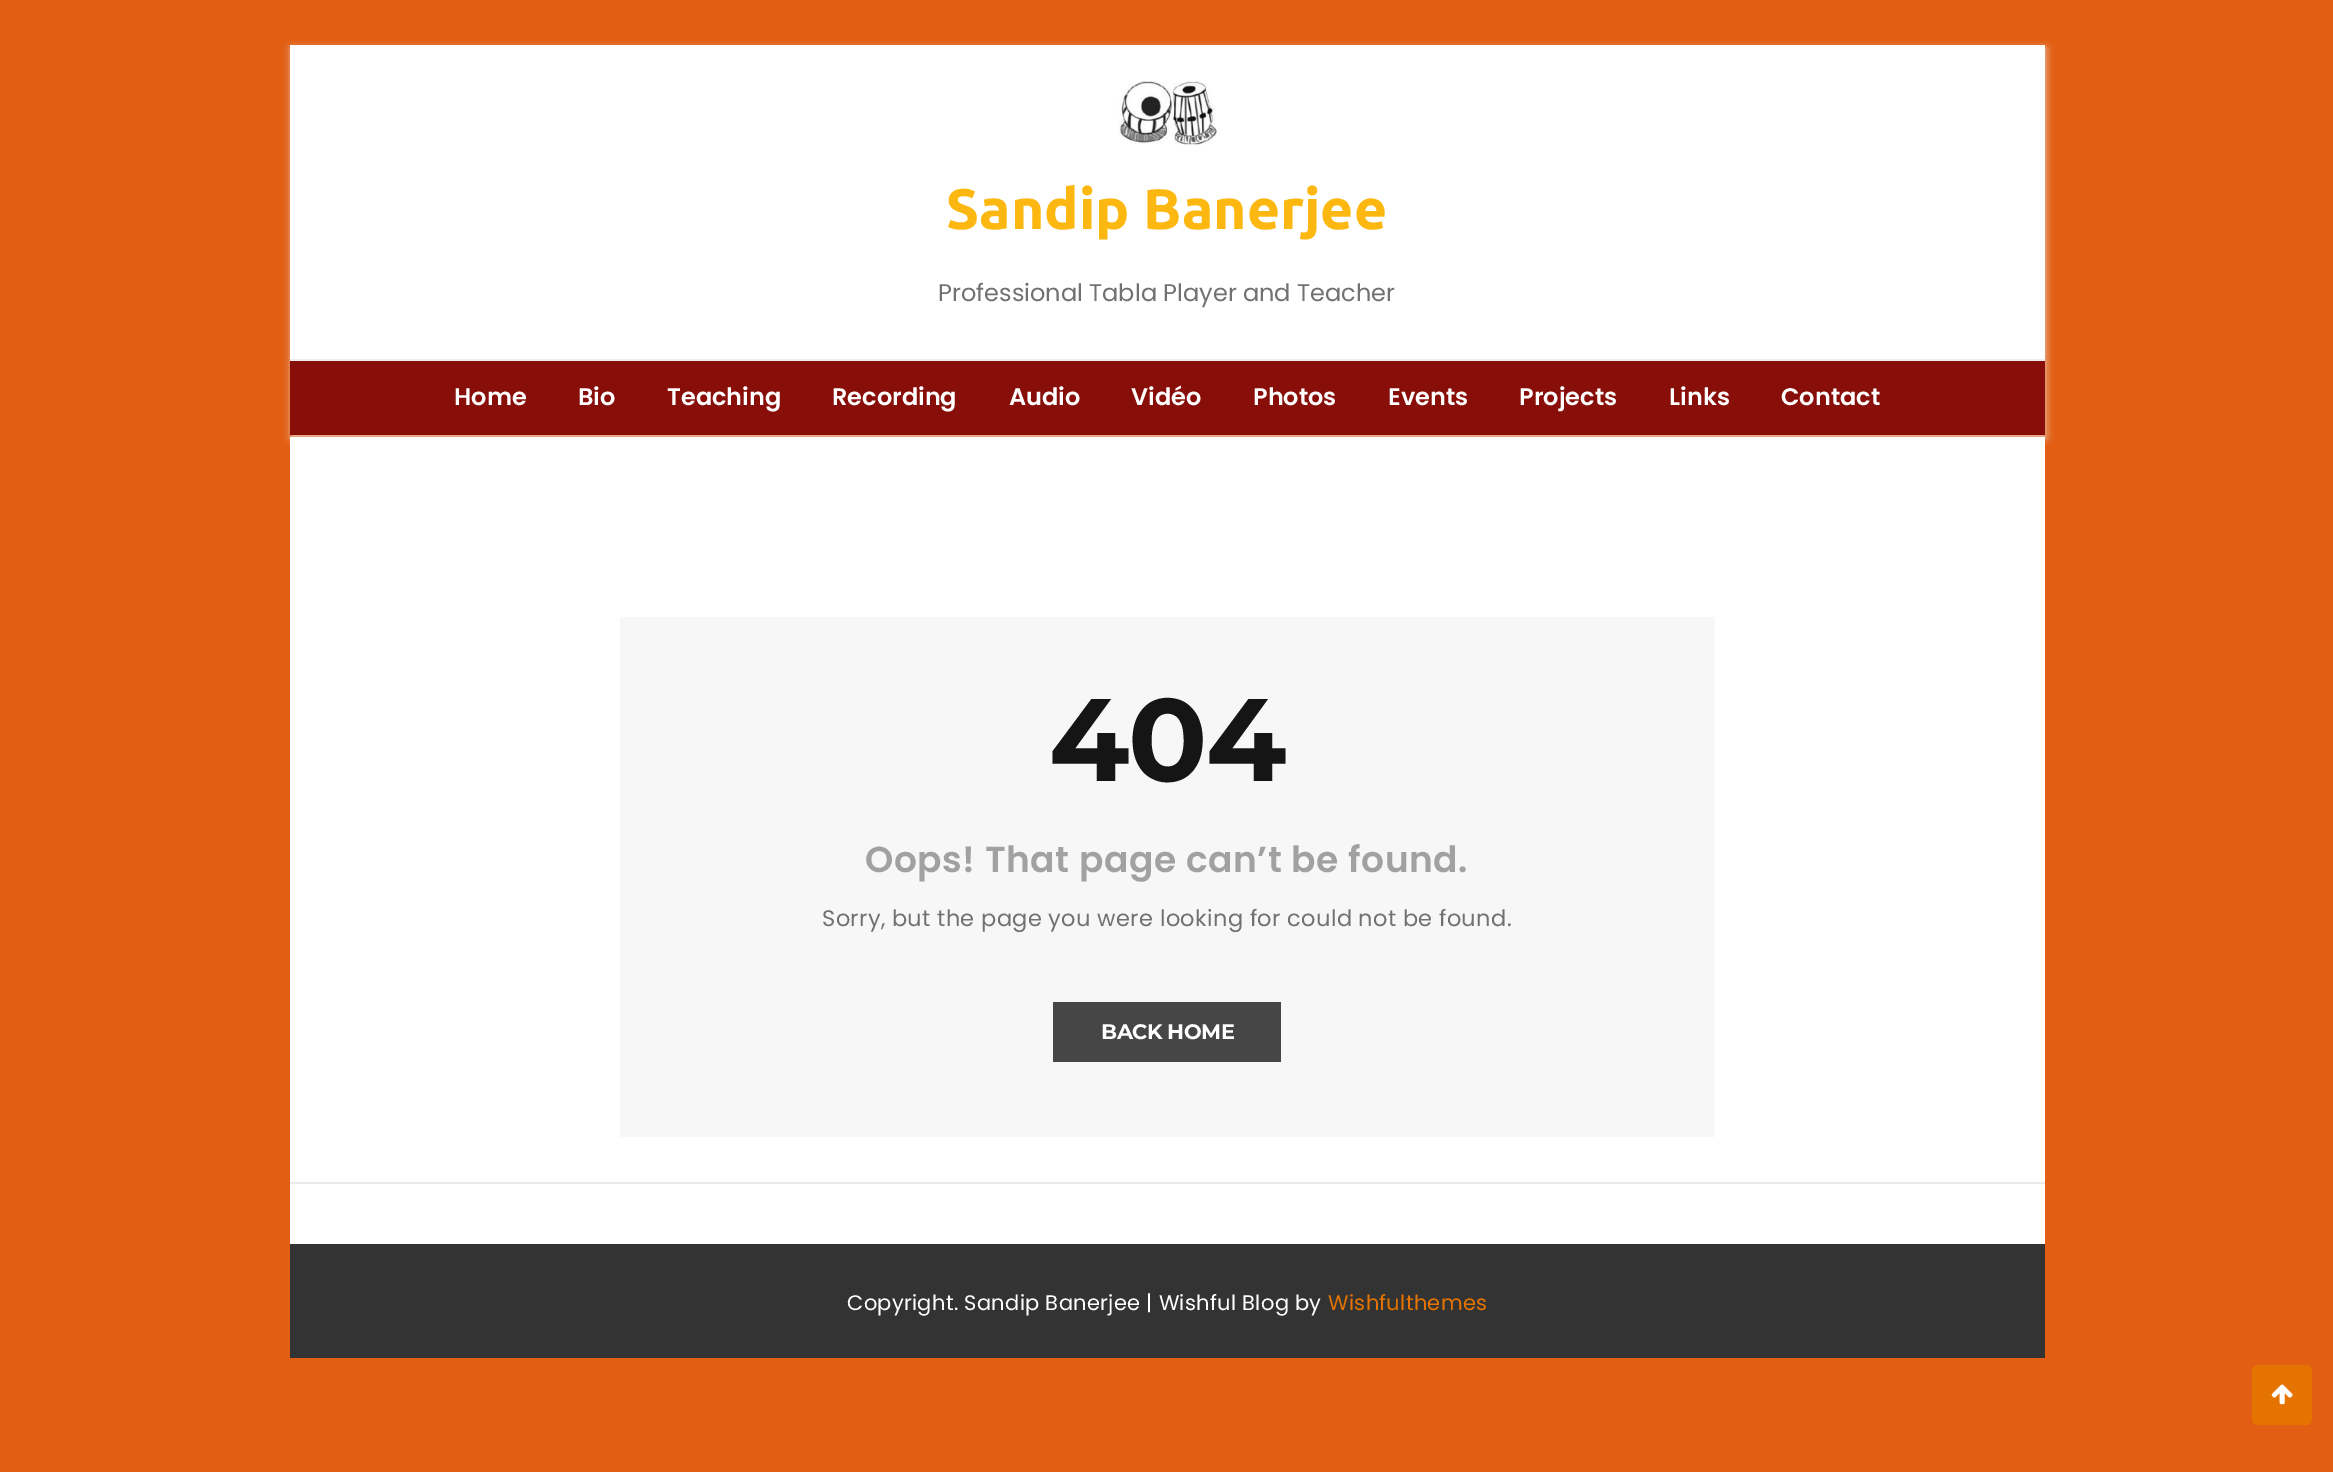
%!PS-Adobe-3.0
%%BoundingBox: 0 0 2333 1472
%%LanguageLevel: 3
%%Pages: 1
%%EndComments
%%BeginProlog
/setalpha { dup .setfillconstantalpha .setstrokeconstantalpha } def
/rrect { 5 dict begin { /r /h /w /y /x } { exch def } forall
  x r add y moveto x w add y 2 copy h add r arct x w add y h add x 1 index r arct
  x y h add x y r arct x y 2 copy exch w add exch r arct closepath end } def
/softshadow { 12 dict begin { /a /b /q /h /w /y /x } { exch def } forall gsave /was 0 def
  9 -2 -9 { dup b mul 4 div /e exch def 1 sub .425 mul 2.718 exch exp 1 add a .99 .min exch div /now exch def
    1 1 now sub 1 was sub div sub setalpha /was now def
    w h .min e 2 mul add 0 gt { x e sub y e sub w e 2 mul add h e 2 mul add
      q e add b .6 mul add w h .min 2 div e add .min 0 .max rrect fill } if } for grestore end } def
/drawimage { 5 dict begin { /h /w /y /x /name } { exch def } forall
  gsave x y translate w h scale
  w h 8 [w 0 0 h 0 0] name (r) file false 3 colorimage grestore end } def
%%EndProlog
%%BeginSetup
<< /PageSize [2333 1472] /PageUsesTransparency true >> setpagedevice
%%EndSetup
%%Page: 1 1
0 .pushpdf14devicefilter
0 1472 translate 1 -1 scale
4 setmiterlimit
0.886 0.369 0.071 setrgbcolor
0 0 2333 1472 rectfill
0.922 setgray
291 48 1755 390 0 4 0.75 softshadow
1 setgray
290 45 1755 314 rectfill
(images/1.raw) 1119 81 98 64 drawimage
0.533 0.055 0.035 setrgbcolor
290 361 1755 74 rectfill
0.933 setgray
290 359 1755 2 rectfill
1 setgray
290 437 1755 745 rectfill
0.969 setgray
620 617 1095 520 rectfill
0.275 setgray
1053 1002 228 60 rectfill
1 setgray
290 1184 1755 60 rectfill
0.922 setgray
290 1182 1755 2 rectfill
0.2 setgray
290 1244 1755 114 rectfill
0.898 0.451 0 setrgbcolor
2252 1365 60 60 6 rrect fill
(images/2.raw) 2271 1384 22 21 drawimage
/Ubuntu-Bold [57 0 0 -57 0 0] selectfont
0.988 0.722 0.067 setrgbcolor
946 229 moveto (Sandip Banerjee) show
/Poppins-Regular [24 0 0 -24 0 0] selectfont
0.443 setgray
938 301 moveto (Professional Tabla Player and Teacher) show
/Poppins-SemiBold [24 0 0 -24 0 0] selectfont
1 setgray
454 405 moveto (Home) show
578 405 moveto (Bio) show
667 405 moveto (Teaching) show
832 405 moveto (Recording) show
1009 405 moveto (Audio) show
1131 405 moveto (Vidéo) show
1253 405 moveto (Photos) show
1388 405 moveto (Events) show
1519 405 moveto (Projects) show
1669 405 moveto (Links) show
1781 405 moveto (Contact) show
/Montserrat-Bold [117 0 0 -117 0 0] selectfont
0.082 setgray
1049 781 moveto -1.5 0 (404) ashow
/Poppins-SemiBold [36 0 0 -36 0 0] selectfont
0.631 setgray
865 872 moveto 0.55 0 (Oops! That page can’t be found.) ashow
/Poppins-Regular [22.5 0 0 -22.5 0 0] selectfont
0.443 setgray
822 926 moveto 0.35 0 (Sorry, but the page you were looking for could not be found.) ashow
/Montserrat-Bold [21 0 0 -21 0 0] selectfont
1 setgray
1101 1039 moveto -0.5 0 (BACK HOME) ashow
/Poppins-Regular [21 0 0 -21 0 0] selectfont
847 1310 moveto 0.3 0 (Copyright. Sandip Banerjee | Wishful Blog by) ashow
0.898 0.451 0 setrgbcolor
1328 1310 moveto 0.3 0 (Wishfulthemes) ashow
.poppdf14devicefilter showpage
%%EOF
